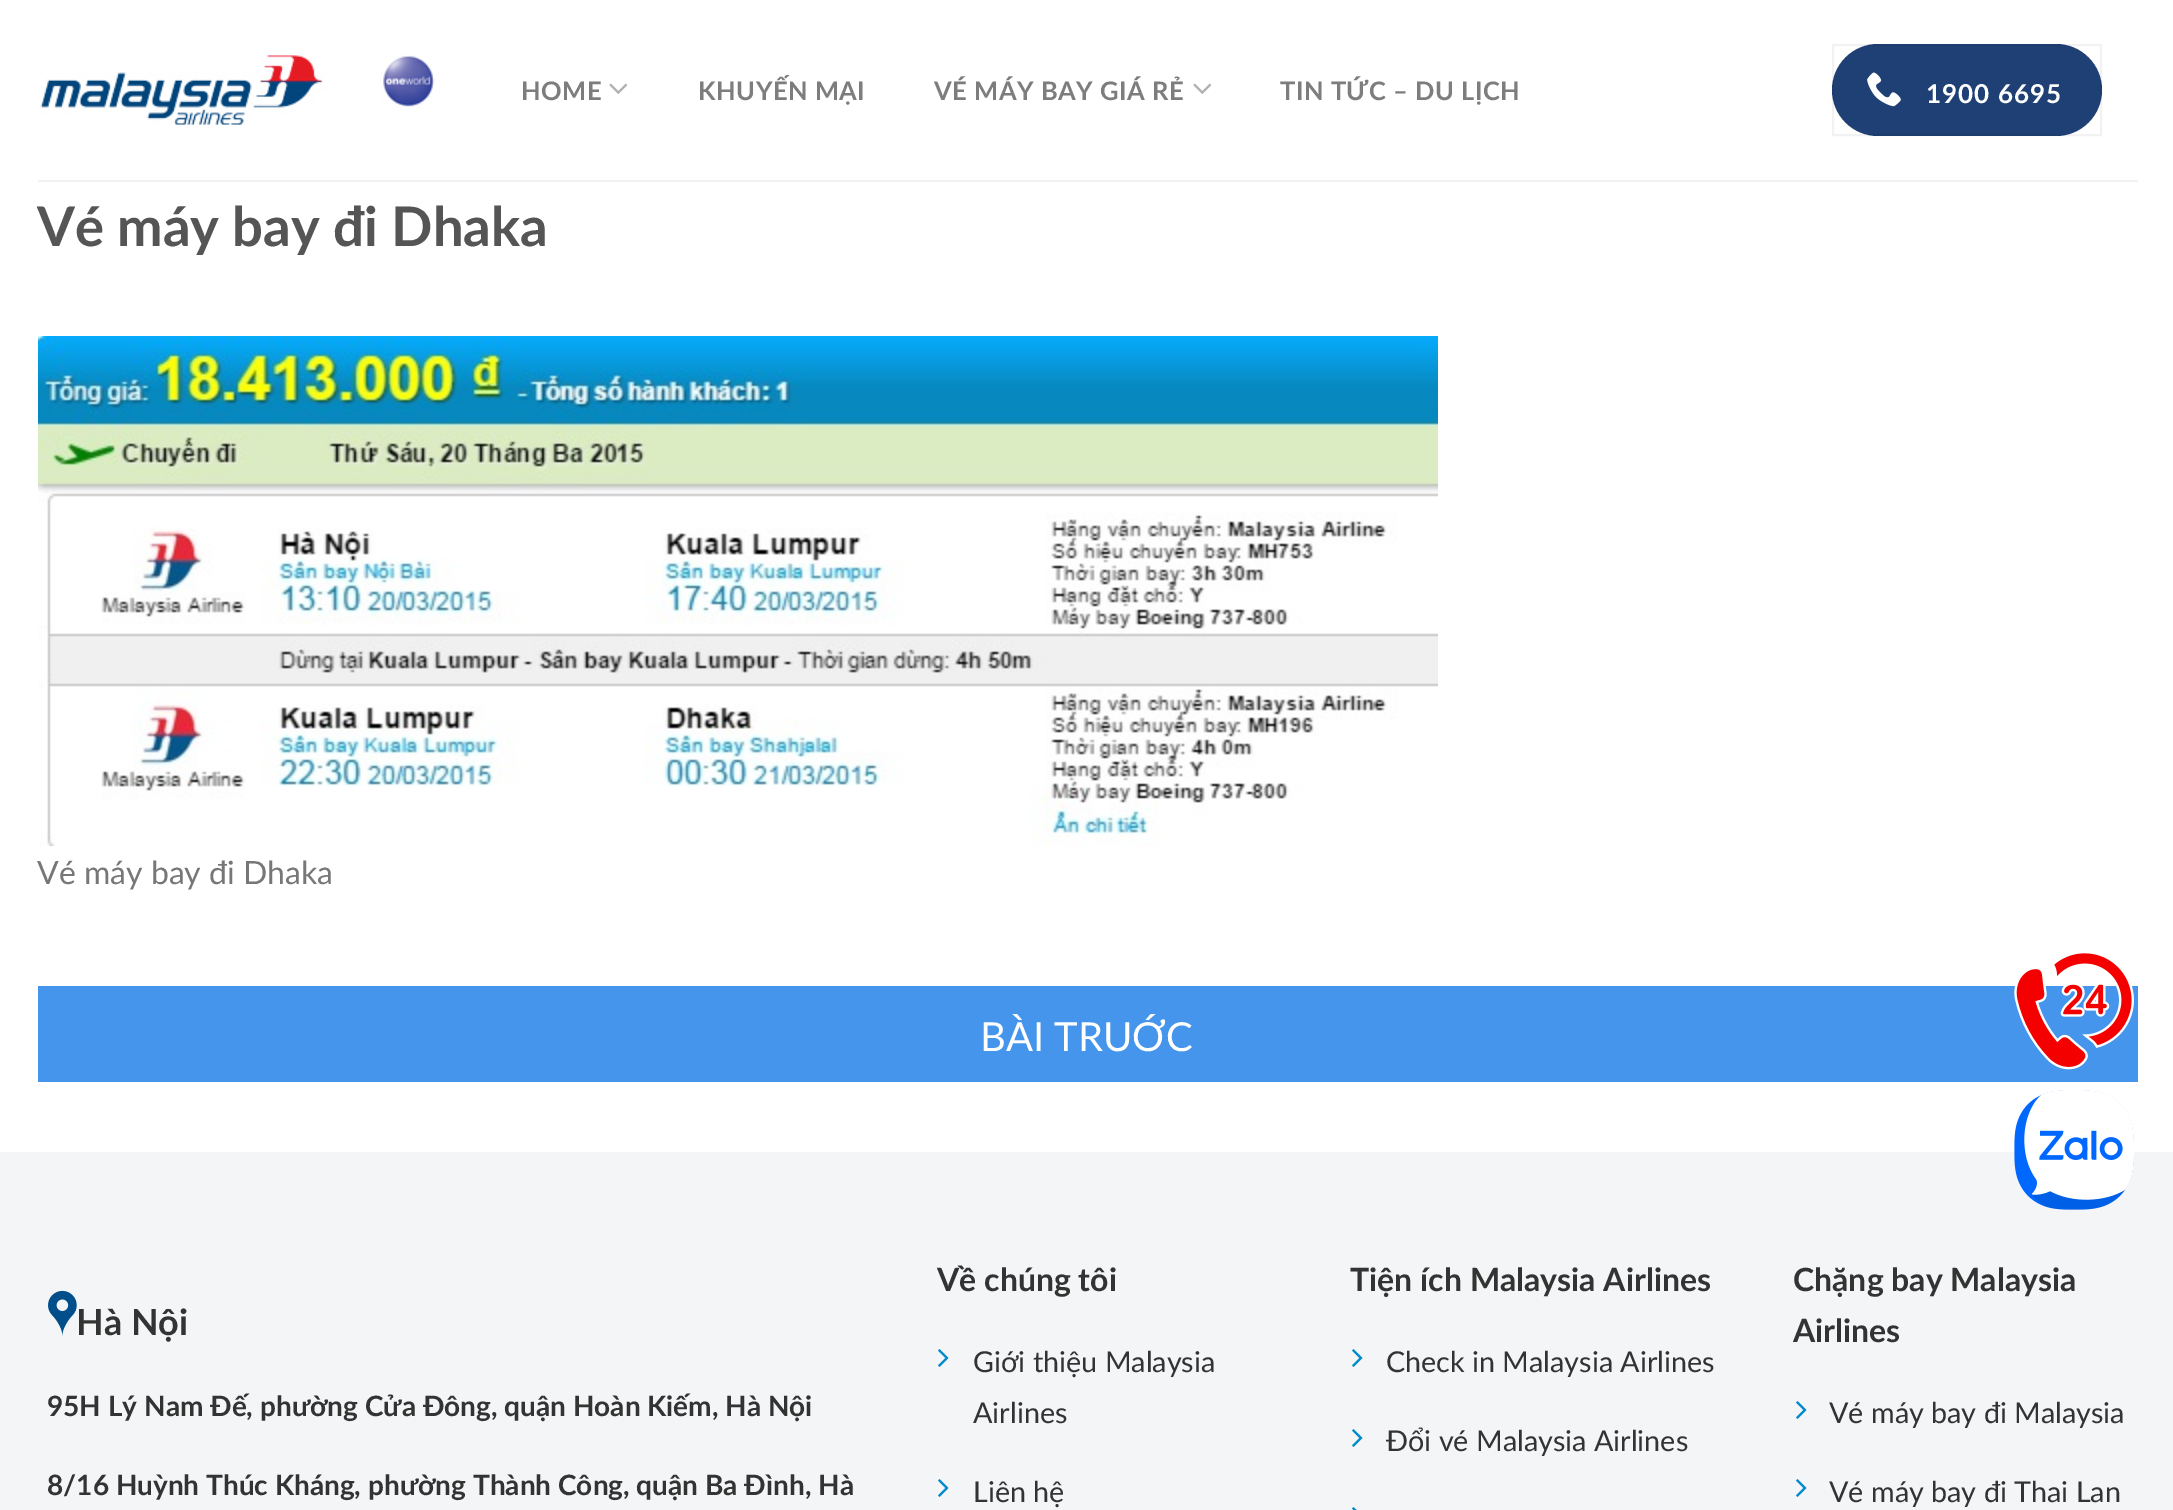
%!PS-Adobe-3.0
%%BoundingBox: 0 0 2173 1510
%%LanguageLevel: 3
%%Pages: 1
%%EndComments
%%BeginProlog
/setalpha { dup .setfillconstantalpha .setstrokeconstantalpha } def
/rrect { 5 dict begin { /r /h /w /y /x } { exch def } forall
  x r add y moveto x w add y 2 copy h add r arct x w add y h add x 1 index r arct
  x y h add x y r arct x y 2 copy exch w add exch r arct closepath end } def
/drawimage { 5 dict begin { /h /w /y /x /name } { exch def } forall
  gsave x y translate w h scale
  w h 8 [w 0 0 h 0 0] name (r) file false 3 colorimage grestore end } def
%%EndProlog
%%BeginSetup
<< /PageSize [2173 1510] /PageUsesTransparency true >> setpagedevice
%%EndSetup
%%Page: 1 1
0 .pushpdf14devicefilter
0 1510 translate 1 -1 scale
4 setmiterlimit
1 setgray
0 0 2173 1510 rectfill
(images/1.raw) 40 55 395 70 drawimage
(images/2.raw) 609 83 19 11 drawimage
(images/2.raw) 1193 83 19 11 drawimage
0.122 0.251 0.455 setrgbcolor
1832 44 270 92 46 rrect fill
0.05 setalpha
0 setgray
2 setlinewidth
1833 45 268 90 rectstroke
1 setalpha
(images/3.raw) 1867 72 34 35 drawimage
0.945 setgray
38 180 2100 2 rectfill
(images/4.raw) 38 336 1400 510 drawimage
0.267 0.584 0.922 setrgbcolor
38 986 2100 96 rectfill
0.953 0.961 0.969 setrgbcolor
0 1152 2173 358 rectfill
(images/5.raw) 48 1290 29 47 drawimage
(images/6.raw) 938 1349 11 18 drawimage
(images/6.raw) 938 1479 11 18 drawimage
(images/6.raw) 1352 1349 11 18 drawimage
(images/6.raw) 1352 1429 11 18 drawimage
(images/7.raw) 1352 1507 5 3 drawimage
(images/6.raw) 1796 1401 11 18 drawimage
(images/6.raw) 1796 1479 11 18 drawimage
(images/8.raw) 2014 953 120 117 drawimage
(images/9.raw) 2014 1090 120 120 drawimage
/Lato-Bold [25.5 0 0 -25.5 0 0] selectfont
0.49 setgray
521 100 moveto 0.5 0 (HOME) ashow
698 100 moveto 0.5 0 (KHUYẾN MẠI) ashow
934 100 moveto 0.5 0 (VÉ MÁY BAY GIÁ RẺ) ashow
1280 100 moveto 0.5 0 (TIN TỨC – DU LỊCH) ashow
/Lato-Bold [26 0 0 -26 0 0] selectfont
1 setgray
1926 103 moveto 1 0 (1900 6695) ashow
/Lato-Bold [54.5 0 0 -54.5 0 0] selectfont
0.333 setgray
37 246 moveto (Vé máy bay đi Dhaka) show
/Lato-Regular [32 0 0 -32 0 0] selectfont
0.467 setgray
37 884 moveto (Vé máy bay đi Dhaka) show
/Lato-Regular [40 0 0 -40 0 0] selectfont
1 setgray
980 1051 moveto (BÀI TRUỚC) show
/Lato-Bold [36 0 0 -36 0 0] selectfont
0.2 setgray
76 1335 moveto (Hà Nội) show
/Lato-Bold [28 0 0 -28 0 0] selectfont
47 1416 moveto (95H Lý Nam Đế, phường Cửa Đông, quận Hoàn Kiếm, Hà Nội) show
47 1495 moveto (8/16 Huỳnh Thúc Kháng, phường Thành Công, quận Ba Đình, Hà) show
/Lato-Bold [32 0 0 -32 0 0] selectfont
937 1291 moveto (Về chúng tôi) show
/Lato-Regular [28.75 0 0 -28.75 0 0] selectfont
973 1372 moveto (Giới thiệu Malaysia) show
973 1423 moveto (Airlines) show
973 1502 moveto (Liên hệ) show
/Lato-Bold [32 0 0 -32 0 0] selectfont
1350 1291 moveto (Tiện ích Malaysia Airlines) show
/Lato-Regular [28.75 0 0 -28.75 0 0] selectfont
1386 1372 moveto (Check in Malaysia Airlines) show
1386 1451 moveto (Đổi vé Malaysia Airlines) show
/Lato-Bold [32 0 0 -32 0 0] selectfont
1793 1291 moveto (Chặng bay Malaysia) show
1793 1342 moveto (Airlines) show
/Lato-Regular [28.75 0 0 -28.75 0 0] selectfont
1829 1423 moveto (Vé máy bay đi Malaysia) show
1829 1502 moveto (Vé máy bay đi Thai Lan) show
.poppdf14devicefilter showpage
%%EOF
